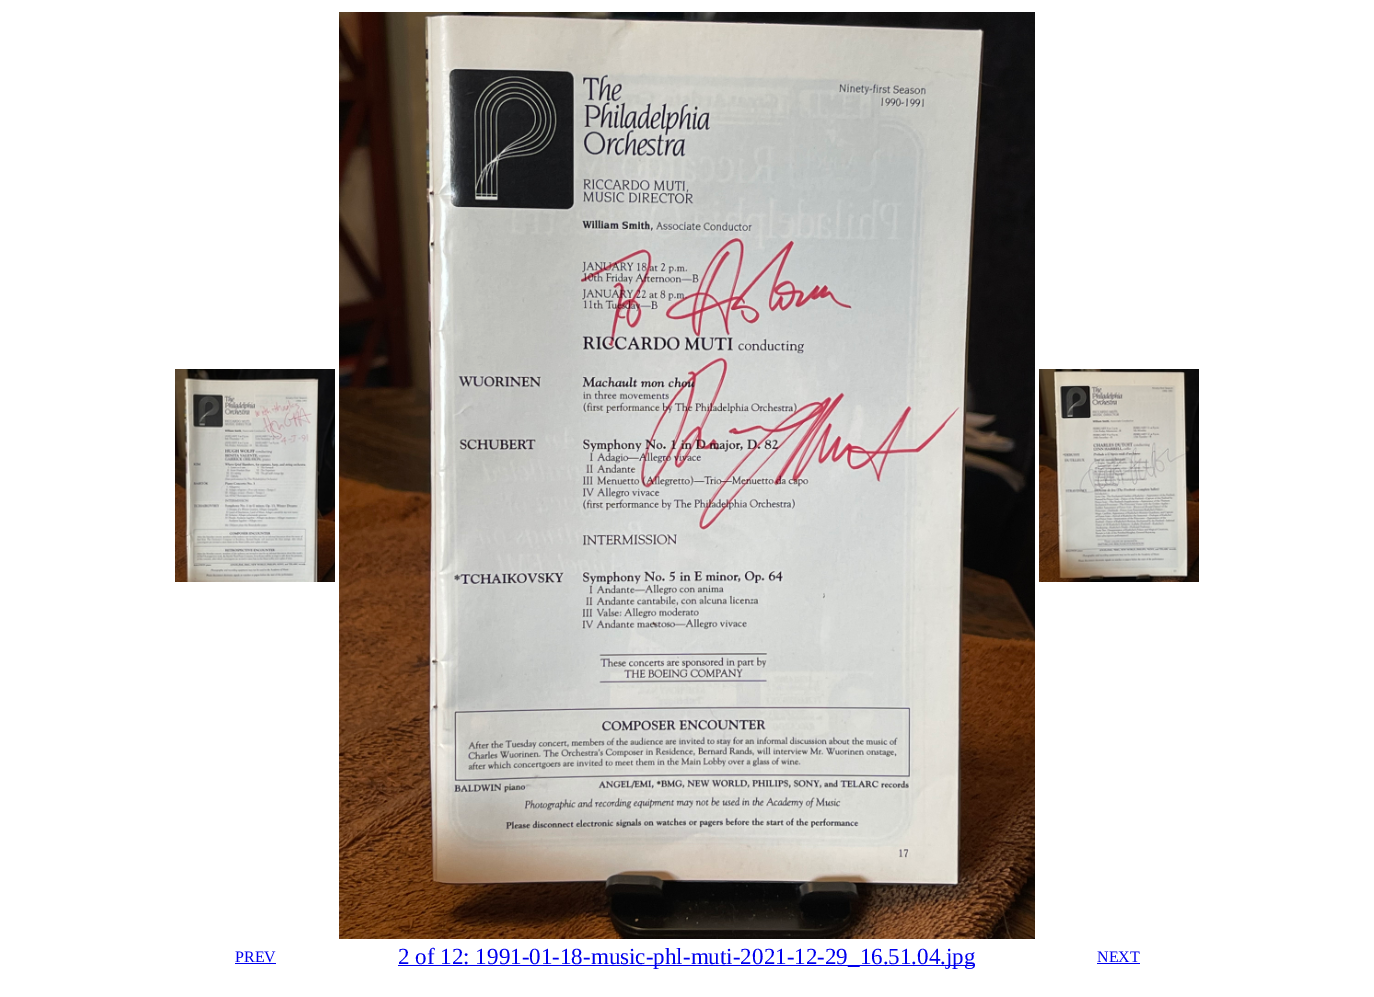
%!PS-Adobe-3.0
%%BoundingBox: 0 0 1374 997
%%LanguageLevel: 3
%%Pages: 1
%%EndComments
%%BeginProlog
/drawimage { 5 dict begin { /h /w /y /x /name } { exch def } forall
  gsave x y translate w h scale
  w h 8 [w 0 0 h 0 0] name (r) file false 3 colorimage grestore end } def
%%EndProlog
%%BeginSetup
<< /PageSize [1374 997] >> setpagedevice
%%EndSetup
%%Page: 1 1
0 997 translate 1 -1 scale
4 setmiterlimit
1 setgray
0 0 1374 997 rectfill
(images/1.raw) 175 369 160 213 drawimage
(images/2.raw) 339 12 696 927 drawimage
(images/3.raw) 1039 369 160 213 drawimage
0 0 0.933 setrgbcolor
235 963 41 1 rectfill
398 965 577 1 rectfill
1097 963 43 1 rectfill
/LiberationSerif-Regular [16 0 0 -16 0 0] selectfont
235 962 moveto (PREV) show
/LiberationSerif-Regular [23.05 0 0 -23.05 0 0] selectfont
398 964 moveto (2 of 12: 1991-01-18-music-phl-muti-2021-12-29_16.51.04.jpg) show
/LiberationSerif-Regular [16 0 0 -16 0 0] selectfont
1097 962 moveto (NEXT) show
showpage
%%EOF
